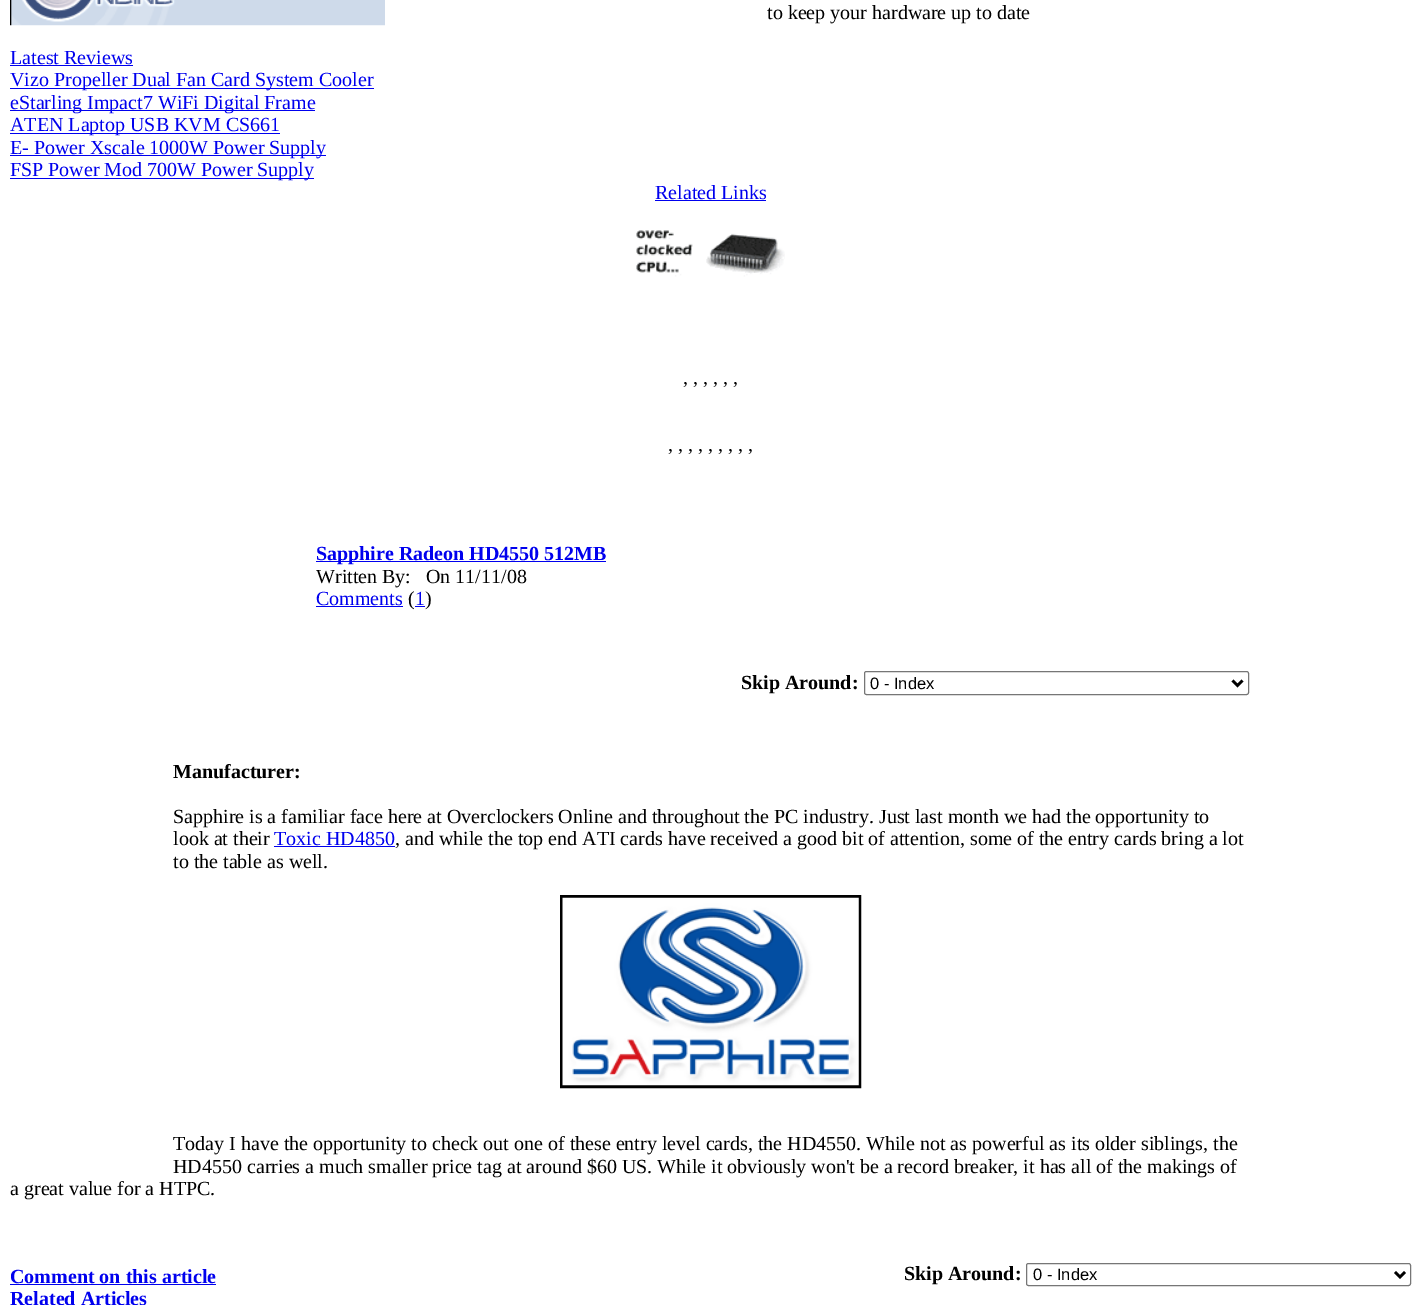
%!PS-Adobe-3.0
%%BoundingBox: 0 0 1421 1305
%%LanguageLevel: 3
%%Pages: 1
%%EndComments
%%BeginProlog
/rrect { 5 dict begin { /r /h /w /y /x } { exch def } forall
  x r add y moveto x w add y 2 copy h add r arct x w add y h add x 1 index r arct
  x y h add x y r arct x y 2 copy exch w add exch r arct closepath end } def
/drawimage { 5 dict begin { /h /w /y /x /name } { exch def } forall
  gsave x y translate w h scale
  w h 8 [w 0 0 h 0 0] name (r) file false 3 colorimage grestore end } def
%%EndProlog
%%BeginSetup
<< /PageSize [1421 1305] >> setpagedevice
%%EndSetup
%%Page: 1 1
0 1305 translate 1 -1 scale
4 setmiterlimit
1 setgray
0 0 1421 1305 rectfill
(images/1.raw) 10 0 375 26 drawimage
0 0 0.933 setrgbcolor
10 65 123 1 rectfill
10 88 364 1 rectfill
10 110 305 1 rectfill
10 133 270 1 rectfill
10 155 316 1 rectfill
10 178 304 1 rectfill
655 200 111 1 rectfill
(images/2.raw) 636 230 149 47 drawimage
316 561 290 1 rectfill
316 606 87 1 rectfill
415 606 10 1 rectfill
0.463 setgray
864.5 671.5 384 23 2 rrect stroke
0 setgray
2.5 setlinewidth
newpath 1232.5 680.5 moveto 1237.5 685.5 lineto 1242.5 680.5 lineto stroke
0 0 0.933 setrgbcolor
274 846 121 1 rectfill
0 setgray
3 setlinewidth
561.5 896.5 298 190 rectstroke
(images/3.raw) 562 897 297 189 drawimage
0 0 0.933 setrgbcolor
10 1284 206 1 rectfill
0.463 setgray
1 setlinewidth
1026.5 1263.5 384 22 2 rrect stroke
0 setgray
2.5 setlinewidth
newpath 1395 1272 moveto 1400 1277 lineto 1405 1272 lineto stroke
/LiberationSerif-Regular [20 0 0 -20 0 0] selectfont
767 19 moveto (to keep your hardware up to date) show
0 0 0.933 setrgbcolor
10 64 moveto (Latest Reviews) show
10 86 moveto (Vizo Propeller Dual Fan Card System Cooler) show
10 109 moveto (eStarling Impact7 WiFi Digital Frame) show
10 131 moveto (ATEN Laptop USB KVM CS661) show
10 154 moveto (E- Power Xscale 1000W Power Supply) show
10 176 moveto (FSP Power Mod 700W Power Supply) show
655 199 moveto (Related Links) show
0 setgray
683 384 moveto (, , , , , ,) show
668 451 moveto (, , , , , , , , ,) show
/LiberationSerif-Bold [20 0 0 -20 0 0] selectfont
0 0 0.933 setrgbcolor
316 560 moveto (Sapphire Radeon HD4550 512MB) show
/LiberationSerif-Regular [20 0 0 -20 0 0] selectfont
0 setgray
316 583 moveto (Written By:   On 11/11/08) show
0 0 0.933 setrgbcolor
316 605 moveto (Comments) show
0 setgray
408 605 moveto (\() show
0 0 0.933 setrgbcolor
415 605 moveto (1) show
0 setgray
425 605 moveto (\)) show
/LiberationSerif-Bold [20 0 0 -20 0 0] selectfont
741 689 moveto (Skip Around:) show
/LiberationSans-Regular [16.5 0 0 -16.5 0 0] selectfont
870 689 moveto (0 - Index) show
/LiberationSerif-Bold [20 0 0 -20 0 0] selectfont
173 778 moveto (Manufacturer:) show
/LiberationSerif-Regular [20 0 0 -20 0 0] selectfont
173 823 moveto (Sapphire is a familiar face here at Overclockers Online and throughout the PC industry. Just last month we had the opportunity to) show
173 845 moveto (look at their) show
0 0 0.933 setrgbcolor
274 845 moveto (Toxic HD4850) show
0 setgray
395 845 moveto (, and while the top end ATI cards have received a good bit of attention, some of the entry cards bring a lot) show
173 868 moveto (to the table as well.) show
173 1150 moveto (Today I have the opportunity to check out one of these entry level cards, the HD4550. While not as powerful as its older siblings, the) show
173 1173 moveto (HD4550 carries a much smaller price tag at around $60 US. While it obviously won't be a record breaker, it has all of the makings of) show
10 1195 moveto (a great value for a HTPC.) show
/LiberationSerif-Bold [20 0 0 -20 0 0] selectfont
0 0 0.933 setrgbcolor
10 1283 moveto (Comment on this article) show
10 1305 moveto (Related Articles) show
0 setgray
904 1280 moveto (Skip Around:) show
/LiberationSans-Regular [16.5 0 0 -16.5 0 0] selectfont
1033 1280 moveto (0 - Index) show
showpage
%%EOF
